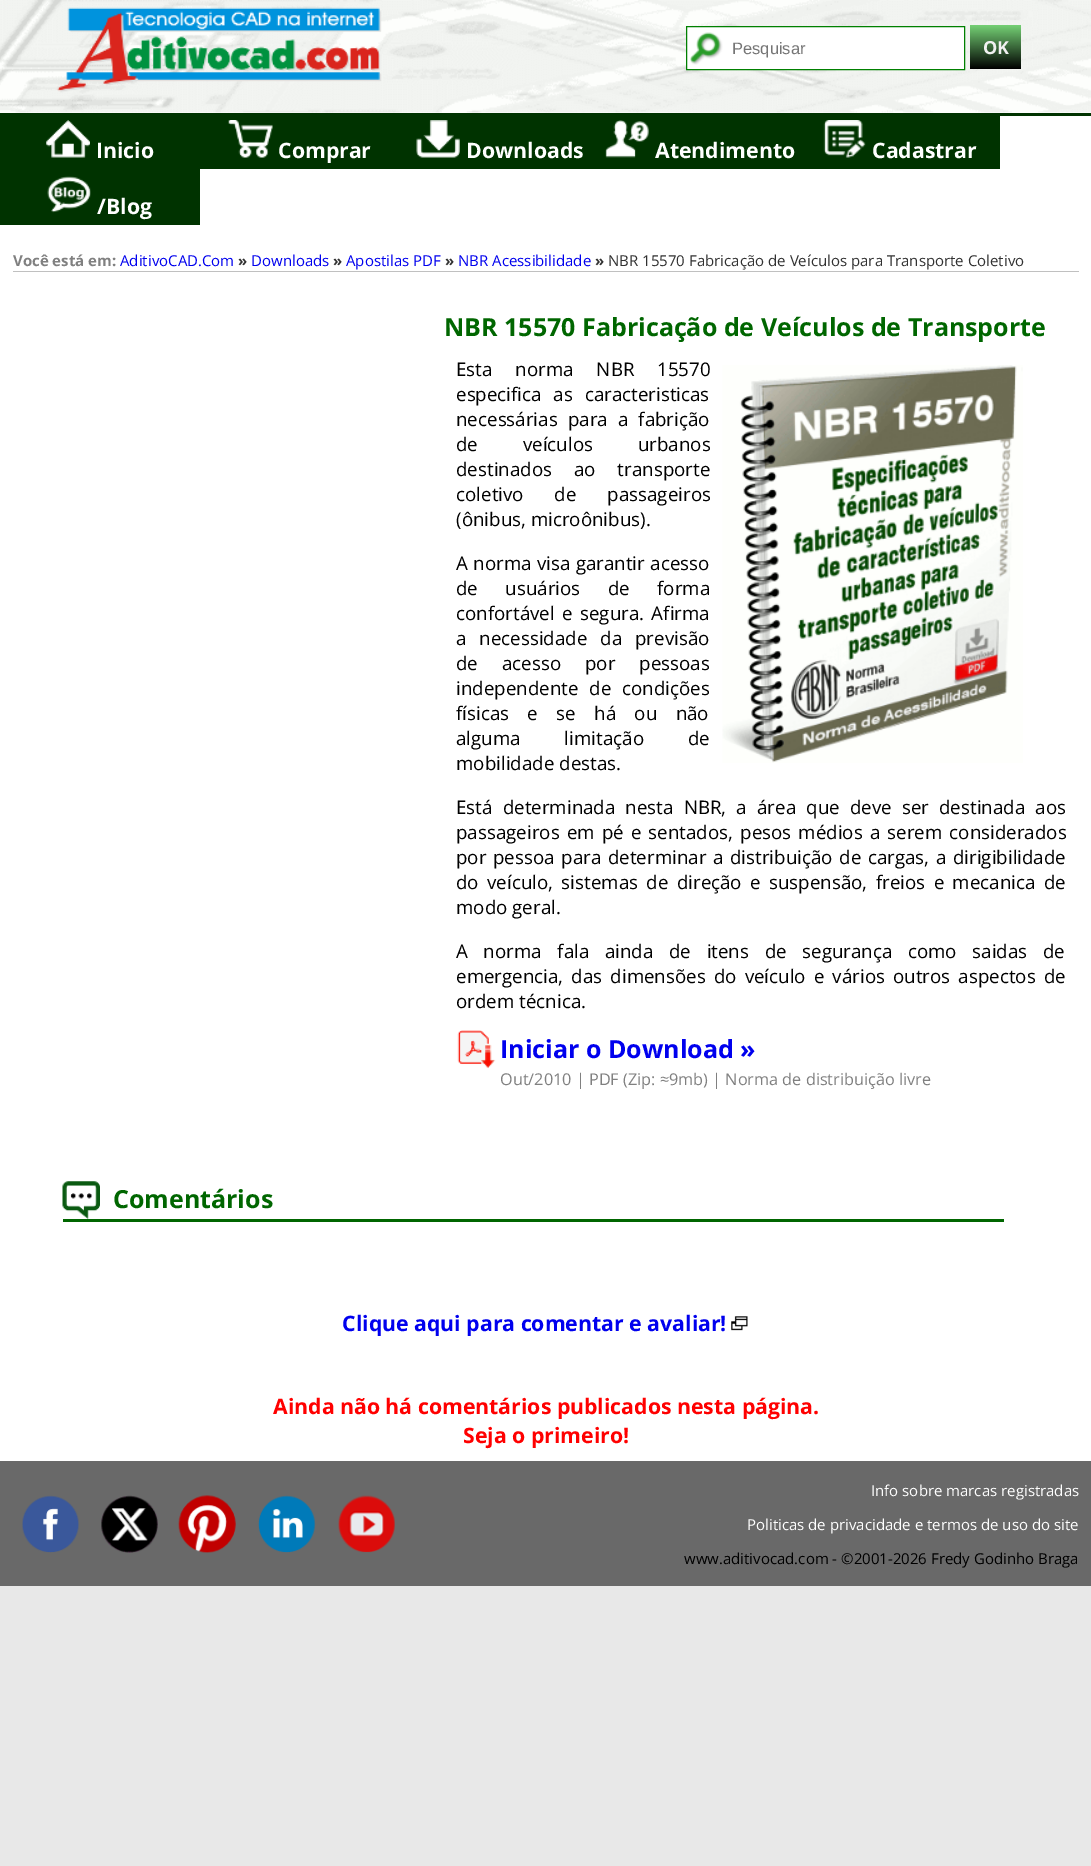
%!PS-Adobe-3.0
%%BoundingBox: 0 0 1091 1866
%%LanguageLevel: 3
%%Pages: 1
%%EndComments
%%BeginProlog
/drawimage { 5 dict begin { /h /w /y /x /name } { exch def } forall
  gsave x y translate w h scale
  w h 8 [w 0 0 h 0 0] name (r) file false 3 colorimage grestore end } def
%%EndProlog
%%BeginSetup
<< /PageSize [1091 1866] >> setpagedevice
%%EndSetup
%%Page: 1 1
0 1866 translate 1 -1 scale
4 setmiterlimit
0.91 setgray
0 0 1091 1866 rectfill
1 setgray
0 112 1091 1349 rectfill
(images/1.raw) 0 0 1091 113 drawimage
(images/2.raw) 57 7 325 86 drawimage
687 27 277 42 rectfill
(images/3.raw) 690 32 33 33 drawimage
0 0.502 0 setrgbcolor
686.5 26.5 278 43 rectstroke
gsave newpath 970 25 moveto 1021 25 lineto 1021 69 lineto 970 69 lineto closepath clip newpath
<< /ShadingType 2 /ColorSpace /DeviceRGB /Coords [970 25 970 69] /Extend [true true] /Function << /FunctionType 2 /Domain [0 1] /C0 [0.459 0.82 0.459] /C1 [0 0 0] /N 1 >> >> shfill grestore
0 0.2 0 setrgbcolor
1000 113 91 3 rectfill
0 113 1000 56 rectfill
(images/4.raw) 46 120 44 38 drawimage
(images/5.raw) 228 120 45 38 drawimage
(images/6.raw) 416 120 44 38 drawimage
(images/7.raw) 605 120 44 38 drawimage
(images/8.raw) 823 120 43 38 drawimage
0 169 200 56 rectfill
(images/9.raw) 47 176 44 37 drawimage
0.753 setgray
13 271 1066 1 rectfill
(images/10.raw) 722 365 301 398 drawimage
(images/11.raw) 457 1030 39 39 drawimage
(images/12.raw) 62 1181 38 38 drawimage
0 0.4 0 setrgbcolor
63 1219 941 3 rectfill
(images/13.raw) 731 1316 17 15 drawimage
0.412 setgray
0 1461 1091 125 rectfill
(images/14.raw) 22 1495 57 58 drawimage
(images/15.raw) 101 1495 57 58 drawimage
(images/16.raw) 178 1495 58 58 drawimage
(images/17.raw) 258 1495 58 58 drawimage
(images/18.raw) 338 1495 57 58 drawimage
/LiberationSans-Regular [16.5 0 0 -16.5 0 0] selectfont
0.459 setgray
732 54 moveto (Pesquisar) show
/OpenSans-Bold [18 0 0 -18 0 0] selectfont
0.945 setgray
983 54 moveto (OK) show
/OpenSans-Bold [21.25 0 0 -21.25 0 0] selectfont
1 setgray
96 158 moveto (Inicio) show
278 158 moveto (Comprar) show
466 158 moveto (Downloads) show
655 158 moveto (Atendimento) show
872 158 moveto (Cadastrar) show
97 214 moveto (/Blog) show
/OpenSans-Bold [15 0 0 -15 0 0] selectfont
0.502 setgray
13 266 moveto (Você está em:) show
/OpenSans-Regular [15 0 0 -15 0 0] selectfont
0 0 0.933 setrgbcolor
120 266 moveto (AditivoCAD.Com) show
/OpenSans-Bold [15 0 0 -15 0 0] selectfont
0.192 setgray
238 266 moveto (») show
/OpenSans-Regular [15 0 0 -15 0 0] selectfont
0 0 0.933 setrgbcolor
251 266 moveto (Downloads) show
/OpenSans-Bold [15 0 0 -15 0 0] selectfont
0.192 setgray
333 266 moveto (») show
/OpenSans-Regular [15 0 0 -15 0 0] selectfont
0 0 0.933 setrgbcolor
346 266 moveto (Apostilas PDF) show
/OpenSans-Bold [15 0 0 -15 0 0] selectfont
0.192 setgray
445 266 moveto (») show
/OpenSans-Regular [15 0 0 -15 0 0] selectfont
0 0 0.933 setrgbcolor
458 266 moveto (NBR Acessibilidade) show
/OpenSans-Bold [15 0 0 -15 0 0] selectfont
0.192 setgray
595 266 moveto (») show
/OpenSans-Regular [15 0 0 -15 0 0] selectfont
608 266 moveto (NBR 15570 Fabricação de Veículos para Transporte Coletivo) show
/OpenSans-Bold [25 0 0 -25 0 0] selectfont
0 0.4 0 setrgbcolor
444 336 moveto (NBR 15570 Fabricação de Veículos de Transporte) show
/OpenSans-Regular [18.75 0 0 -18.75 0 0] selectfont
0 setgray
456 376 moveto 18 0 32 (Esta norma NBR 15570) widthshow
456 401 moveto 7 0 32 (especifica as caracteristicas) widthshow
456 426 moveto 5.25 0 32 (necessárias para a fabrição) widthshow
456 451 moveto 40 0 32 (de veículos urbanos) widthshow
456 476 moveto 17 0 32 (destinados ao transporte) widthshow
456 501 moveto 26 0 32 (coletivo de passageiros) widthshow
456 526 moveto (\(ônibus, microônibus\).) show
456 570 moveto 0.5 0 32 (A norma visa garantir acesso) widthshow
456 595 moveto 22.5 0 32 (de usuários de forma) widthshow
456 620 moveto 2.5 0 32 (confortável e segura. Afirma) widthshow
456 645 moveto 8 0 32 (a necessidade da previsão) widthshow
456 670 moveto 19 0 32 (de acesso por pessoas) widthshow
456 695 moveto 6 0 32 (independente de condições) widthshow
456 720 moveto 13.5 0 32 (físicas e se há ou não) widthshow
456 745 moveto 39 0 32 (alguma limitação de) widthshow
456 770 moveto (mobilidade destas.) show
456 814 moveto 5.25 0 32 (Está determinada nesta NBR, a área que deve ser destinada aos) widthshow
456 839 moveto 2.25 0 32 (passageiros em pé e sentados, pesos médios a serem considerados) widthshow
456 864 moveto 1.75 0 32 (por pessoa para determinar a distribuição de cargas, a dirigibilidade) widthshow
456 889 moveto 3.5 0 32 (do veículo, sistemas de direção e suspensão, freios e mecanica de) widthshow
456 914 moveto (modo geral.) show
456 958 moveto 10.75 0 32 (A norma fala ainda de itens de segurança como saidas de) widthshow
456 983 moveto 3.25 0 32 (emergencia, das dimensões do veículo e vários outros aspectos de) widthshow
456 1008 moveto (ordem técnica.) show
/OpenSans-Bold [25 0 0 -25 0 0] selectfont
0 0 0.933 setrgbcolor
500 1058 moveto (Iniciar o Download ») show
/OpenSans-Regular [16.25 0 0 -16.25 0 0] selectfont
0.502 setgray
500 1085 moveto (Out/2010 | PDF \(Zip: ≈9mb\) | Norma de distribuição livre) show
/OpenSans-Bold [25 0 0 -25 0 0] selectfont
0 0.4 0 setrgbcolor
113 1208 moveto (Comentários) show
/OpenSans-Bold [21.25 0 0 -21.25 0 0] selectfont
0 0 0.933 setrgbcolor
342 1331 moveto (Clique aqui para comentar e avaliar!) show
1 0 0 setrgbcolor
273 1414 moveto (Ainda não há comentários publicados nesta página.) show
463 1443 moveto (Seja o primeiro!) show
/OpenSans-Regular [15 0 0 -15 0 0] selectfont
1 setgray
871 1496 moveto (Info sobre marcas registradas) show
747 1530 moveto (Politicas de privacidade e termos de uso do site) show
0 setgray
684 1564 moveto (www.aditivocad.com - ©2001-2026 Fredy Godinho Braga) show
showpage
%%EOF
